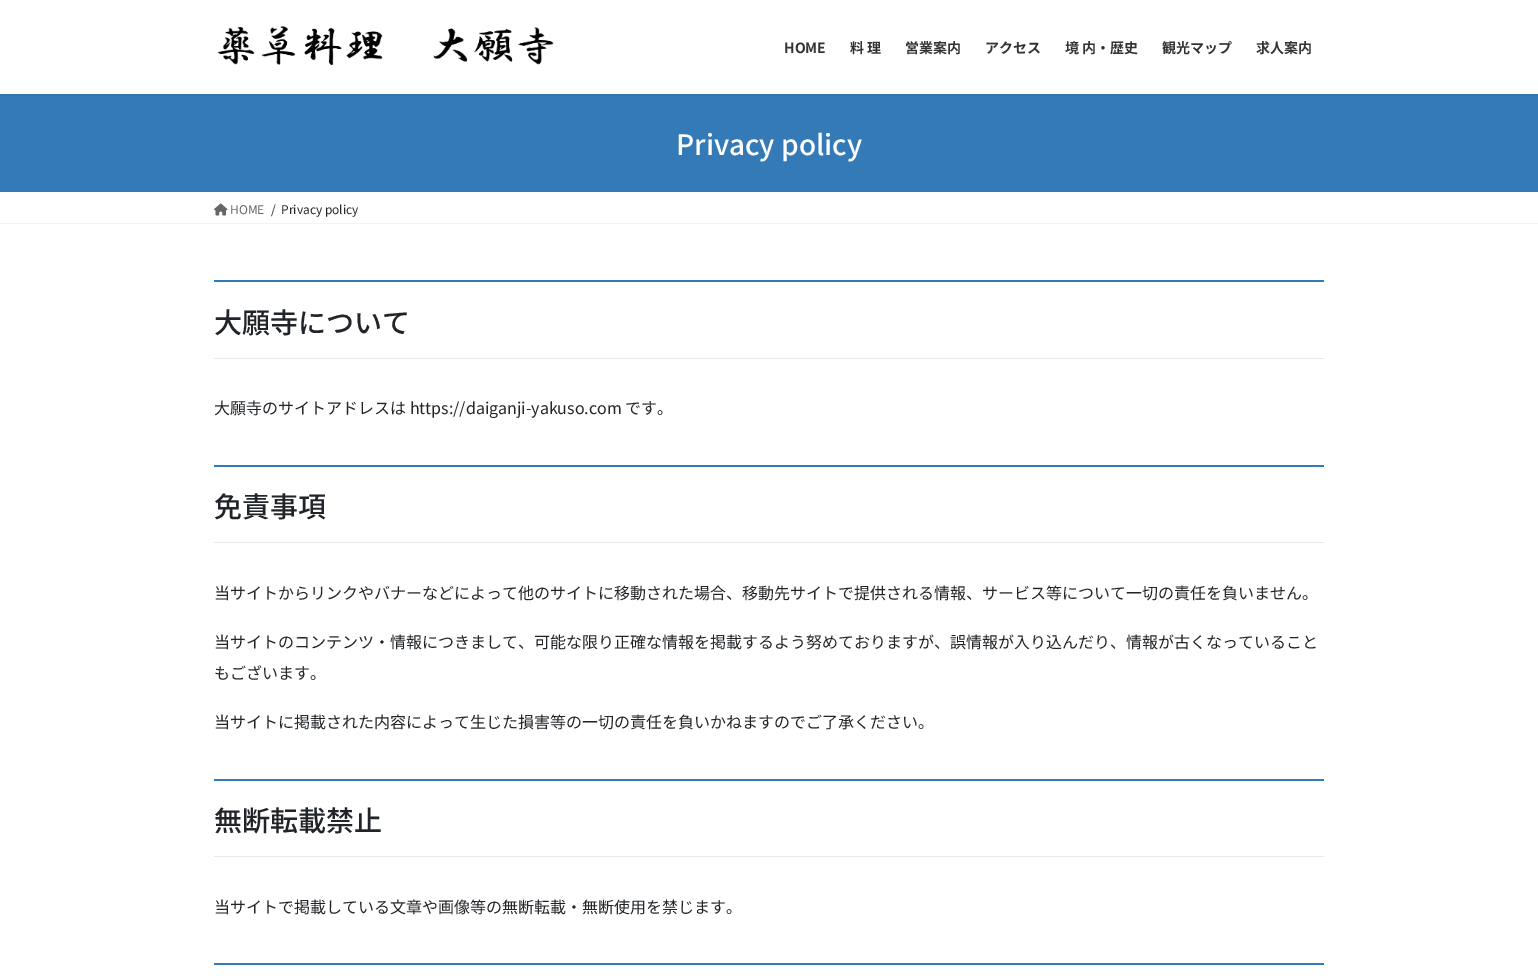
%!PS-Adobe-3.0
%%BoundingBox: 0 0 1538 976
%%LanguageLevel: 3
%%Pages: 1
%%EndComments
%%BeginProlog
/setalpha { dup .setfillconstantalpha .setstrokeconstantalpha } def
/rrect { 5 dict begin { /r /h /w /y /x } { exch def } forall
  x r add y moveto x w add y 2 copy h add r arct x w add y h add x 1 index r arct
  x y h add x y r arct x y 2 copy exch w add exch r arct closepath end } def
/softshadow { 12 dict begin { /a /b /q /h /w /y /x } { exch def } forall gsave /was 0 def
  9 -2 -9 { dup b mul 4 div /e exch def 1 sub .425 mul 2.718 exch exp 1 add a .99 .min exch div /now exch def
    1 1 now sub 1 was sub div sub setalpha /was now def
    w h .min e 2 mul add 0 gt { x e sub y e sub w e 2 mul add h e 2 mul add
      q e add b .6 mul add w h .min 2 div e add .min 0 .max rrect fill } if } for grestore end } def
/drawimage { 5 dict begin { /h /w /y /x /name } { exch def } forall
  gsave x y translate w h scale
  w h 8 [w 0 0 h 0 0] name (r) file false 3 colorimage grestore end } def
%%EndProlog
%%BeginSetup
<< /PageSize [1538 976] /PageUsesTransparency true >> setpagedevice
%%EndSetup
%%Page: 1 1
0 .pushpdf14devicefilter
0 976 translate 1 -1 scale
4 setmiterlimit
1 setgray
0 0 1538 976 rectfill
0.2 0.478 0.718 setrgbcolor
0 94 1538 98 rectfill
gsave
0 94 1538 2 rectclip
0 setgray
0 1 1538 94 0 1.5 0.1 softshadow
grestore
(images/1.raw) 217 26 337 40 drawimage
0.949 setgray
0 223 1538 1 rectfill
(images/2.raw) 214 203 14 13 drawimage
0.2 0.478 0.718 setrgbcolor
214 280 1110 2 rectfill
0.914 setgray
214 358 1110 1 rectfill
0.2 0.478 0.718 setrgbcolor
214 465 1110 2 rectfill
0.914 setgray
214 542 1110 1 rectfill
0.2 0.478 0.718 setrgbcolor
214 779 1110 2 rectfill
0.914 setgray
214 856 1110 1 rectfill
0.2 0.478 0.718 setrgbcolor
214 963 1110 2 rectfill
/NotoSansJP-Bold [14 0 0 -14 0 0] selectfont
0.2 setgray
784 53 moveto (HOME) show
850 53 moveto (料 理) show
905 53 moveto (営業案内) show
985 53 moveto (アクセス) show
1065 53 moveto (境 内・歴史) show
1162 53 moveto (観光マップ) show
1256 53 moveto (求人案内) show
/NotoSansJP-Medium [28 0 0 -28 0 0] selectfont
1 setgray
676 155 moveto (Privacy policy) show
/NotoSansJP-Regular [12 0 0 -12 0 0] selectfont
0.4 setgray
230 214 moveto (HOME) show
0.129 0.145 0.161 setrgbcolor
271 214 moveto (/) show
281 214 moveto (Privacy policy) show
/NotoSansJP-Medium [28 0 0 -28 0 0] selectfont
214 333 moveto (大願寺について) show
/NotoSansJP-Regular [16 0 0 -16 0 0] selectfont
214 414 moveto (大願寺のサイトアドレスは https://daiganji-yakuso.com です。) show
/NotoSansJP-Medium [28 0 0 -28 0 0] selectfont
214 517 moveto (免責事項) show
/NotoSansJP-Regular [16 0 0 -16 0 0] selectfont
214 599 moveto (当サイトからリンクやバナーなどによって他のサイトに移動された場合、移動先サイトで提供される情報、サービス等について一切の責任を負いません。) show
214 648 moveto (当サイトのコンテンツ・情報につきまして、可能な限り正確な情報を掲載するよう努めておりますが、誤情報が入り込んだり、情報が古くなっていること) show
214 679 moveto (もございます。) show
214 728 moveto (当サイトに掲載された内容によって生じた損害等の一切の責任を負いかねますのでご了承ください。) show
/NotoSansJP-Medium [28 0 0 -28 0 0] selectfont
214 831 moveto (無断転載禁止) show
/NotoSansJP-Regular [16 0 0 -16 0 0] selectfont
214 913 moveto (当サイトで掲載している文章や画像等の無断転載・無断使用を禁じます。) show
.poppdf14devicefilter showpage
%%EOF
